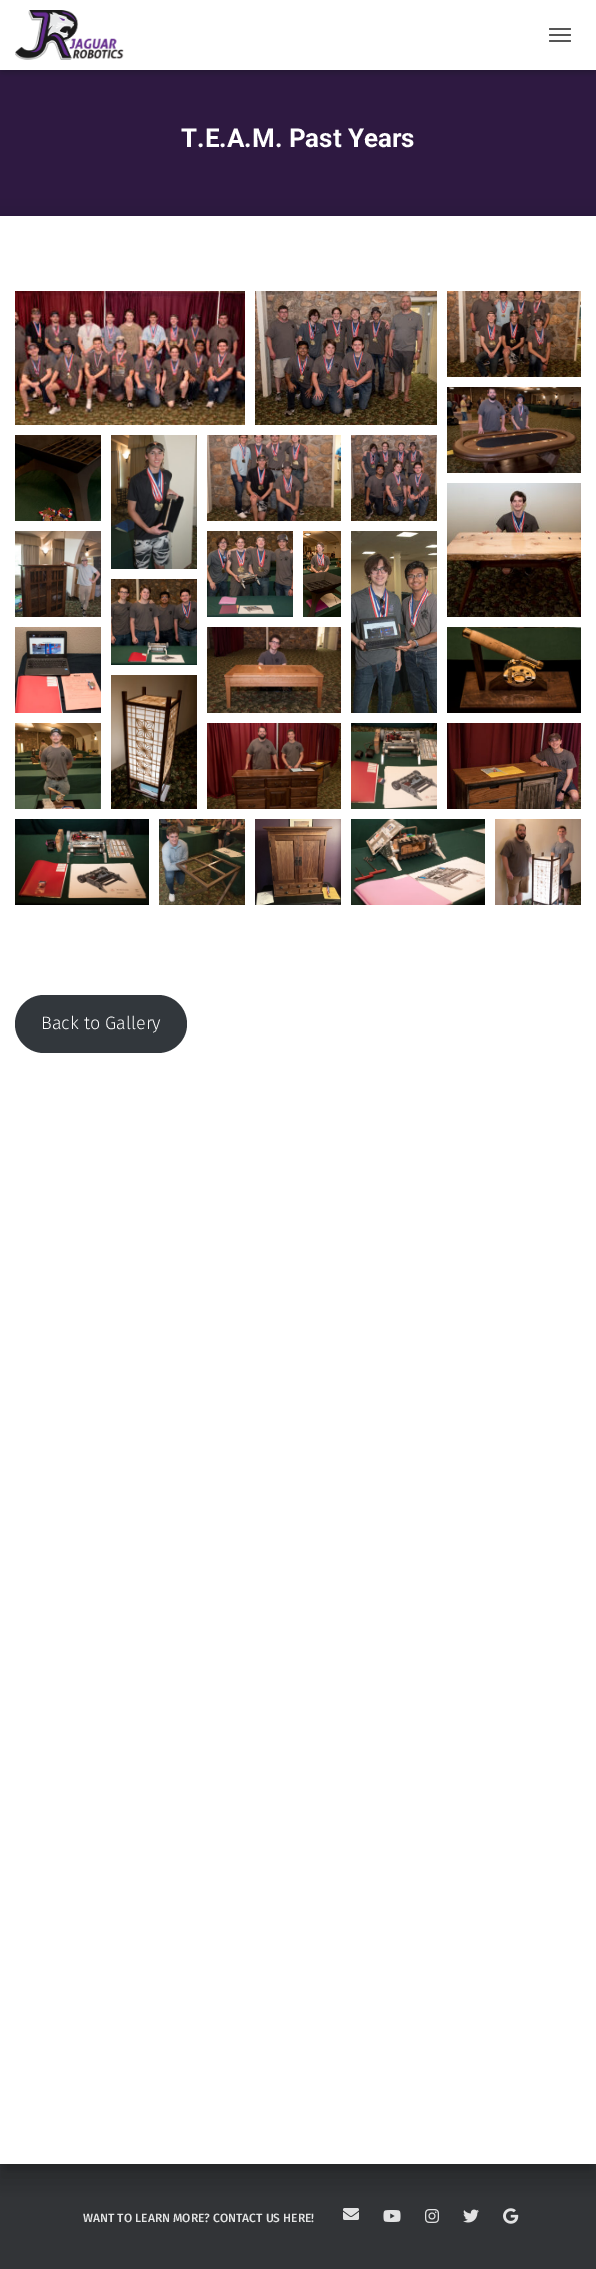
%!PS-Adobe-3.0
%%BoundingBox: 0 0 596 2269
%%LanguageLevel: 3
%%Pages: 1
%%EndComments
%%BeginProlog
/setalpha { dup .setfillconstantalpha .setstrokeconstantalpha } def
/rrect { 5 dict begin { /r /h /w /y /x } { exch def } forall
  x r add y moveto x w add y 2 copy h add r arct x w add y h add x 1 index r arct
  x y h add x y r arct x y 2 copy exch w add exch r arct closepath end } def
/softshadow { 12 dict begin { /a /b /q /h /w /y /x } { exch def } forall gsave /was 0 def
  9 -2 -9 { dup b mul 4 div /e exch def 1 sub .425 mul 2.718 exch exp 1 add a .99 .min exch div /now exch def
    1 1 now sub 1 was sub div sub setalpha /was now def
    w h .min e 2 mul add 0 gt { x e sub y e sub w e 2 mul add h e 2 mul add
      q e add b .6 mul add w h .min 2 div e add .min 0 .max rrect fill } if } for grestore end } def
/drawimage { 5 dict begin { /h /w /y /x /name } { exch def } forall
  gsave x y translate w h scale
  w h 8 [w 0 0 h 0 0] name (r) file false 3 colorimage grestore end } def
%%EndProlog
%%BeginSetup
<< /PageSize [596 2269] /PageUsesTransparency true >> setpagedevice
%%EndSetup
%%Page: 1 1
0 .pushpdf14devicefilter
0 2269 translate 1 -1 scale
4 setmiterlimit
1 setgray
0 0 596 2269 rectfill
(images/1.raw) 0 70 596 146 drawimage
0.5 setalpha
0 setgray
0 70 596 146 rectfill
1 setalpha
2 6 592 66 0 2.5 0.1 softshadow
0 1 596 70 0 5 0.12 softshadow
6 7 584 58 0 5 0.42 softshadow
1 setgray
0 0 596 70 rectfill
(images/2.raw) 15 10 109 50 drawimage
0.333 setgray
549 28 22 2 1 rrect fill
549 34 22 2 1 rrect fill
549 40 22 2 1 rrect fill
0.196 0.204 0.216 setrgbcolor
0 2164 596 105 rectfill
0 setgray
5 229 586 1938 0 5 0.2 softshadow
-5 217 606 1958 0 15 0.12 softshadow
-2 230 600 1952 0 12 0.14 softshadow
1 setgray
0 216 596 1948 rectfill
(images/3.raw) 15 291 230 134 drawimage
(images/4.raw) 255 291 182 134 drawimage
(images/5.raw) 447 291 134 86 drawimage
(images/6.raw) 15 435 86 86 drawimage
(images/7.raw) 111 435 86 134 drawimage
(images/8.raw) 207 435 134 86 drawimage
(images/9.raw) 447 387 134 86 drawimage
(images/10.raw) 351 435 86 86 drawimage
(images/11.raw) 447 483 134 134 drawimage
(images/12.raw) 15 531 86 86 drawimage
(images/13.raw) 111 579 86 86 drawimage
(images/14.raw) 207 531 86 86 drawimage
(images/15.raw) 303 531 38 86 drawimage
(images/16.raw) 351 531 86 182 drawimage
(images/17.raw) 15 627 86 86 drawimage
(images/18.raw) 111 675 86 134 drawimage
(images/19.raw) 207 627 134 86 drawimage
(images/20.raw) 447 627 134 86 drawimage
(images/21.raw) 15 723 86 86 drawimage
(images/22.raw) 207 723 134 86 drawimage
(images/23.raw) 351 723 86 86 drawimage
(images/24.raw) 447 723 134 86 drawimage
(images/25.raw) 15 819 134 86 drawimage
(images/26.raw) 159 819 86 86 drawimage
(images/27.raw) 255 819 86 86 drawimage
(images/28.raw) 351 819 134 86 drawimage
(images/29.raw) 495 819 86 86 drawimage
0.196 0.216 0.235 setrgbcolor
15 995 172 58 29 rrect fill
(images/30.raw) 343 2208 16 12 drawimage
(images/31.raw) 383 2210 18 12 drawimage
(images/32.raw) 425 2209 14 14 drawimage
(images/33.raw) 463 2209 16 14 drawimage
(images/34.raw) 503 2208 16 16 drawimage
/Roboto-Bold [26 0 0 -26 0 0] selectfont
1 setgray
181 147 moveto (T.E.A.M. Past Years) show
/FiraSans-Light [14 0 0 -14 0 0] selectfont
0.373 0.259 0.251 setrgbcolor
380 501 moveto 1 0 (T.E.A.M.) ashow
/FiraSans-Light [18 0 0 -18 0 0] selectfont
1 setgray
41 1029 moveto (Back to Gallery) show
/FiraSans-Medium [12 0 0 -12 0 0] selectfont
0.886 0.89 0.89 setrgbcolor
83 2222 moveto (WANT TO LEARN MORE? CONTACT US HERE!) show
.poppdf14devicefilter showpage
%%EOF
